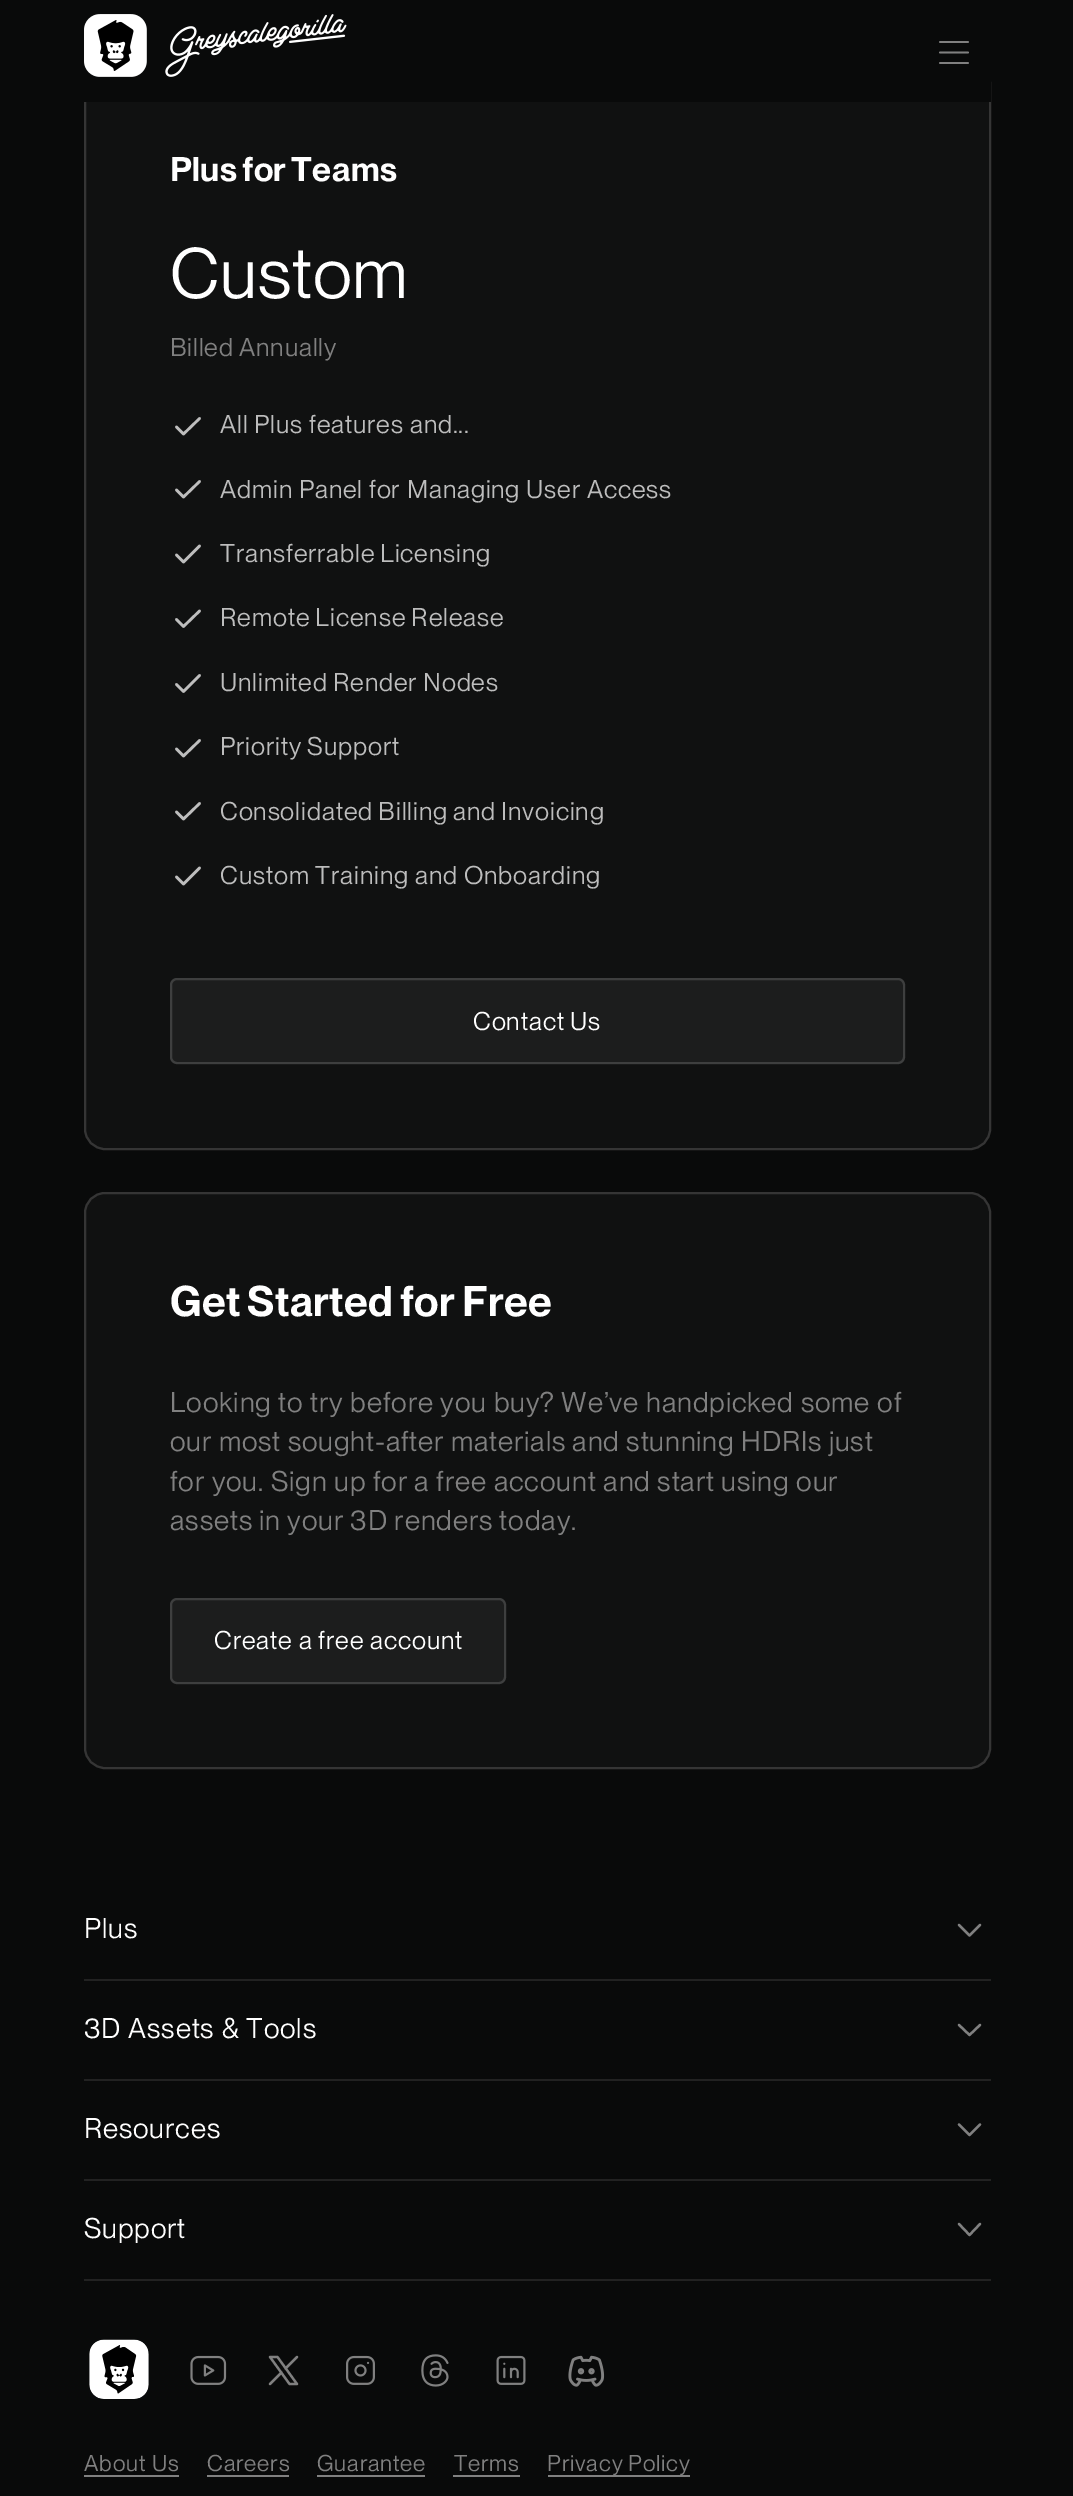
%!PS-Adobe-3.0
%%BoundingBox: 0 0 1073 2496
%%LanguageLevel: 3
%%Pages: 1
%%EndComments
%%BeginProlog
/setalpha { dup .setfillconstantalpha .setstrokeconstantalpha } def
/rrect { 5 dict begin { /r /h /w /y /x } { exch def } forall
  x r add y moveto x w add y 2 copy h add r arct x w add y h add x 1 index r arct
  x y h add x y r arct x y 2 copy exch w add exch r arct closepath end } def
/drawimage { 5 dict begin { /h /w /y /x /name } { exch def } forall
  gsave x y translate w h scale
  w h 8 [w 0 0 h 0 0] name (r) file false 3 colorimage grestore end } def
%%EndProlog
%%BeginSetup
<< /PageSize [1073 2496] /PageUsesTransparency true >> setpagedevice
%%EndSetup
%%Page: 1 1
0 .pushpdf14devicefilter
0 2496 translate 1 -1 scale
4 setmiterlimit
0.035 0.039 0.039 setrgbcolor
0 0 1073 2496 rectfill
0.063 0.067 0.067 setrgbcolor
85 64 905 1085 20 rrect gsave fill grestore
0.208 setgray
2 setlinewidth
stroke
0.035 0.039 0.039 setrgbcolor
84 63 907 39 rectfill
(images/1.raw) 84 14 263 63 drawimage
0.502 setgray
1.8 setlinewidth
1 setlinecap
1 setlinejoin
newpath 940 42 moveto 968 42 lineto 940 52.5 moveto 968 52.5 lineto 940 63 moveto 968 63 lineto stroke
0.745 setgray
2.6 setlinewidth
newpath 199.5 418.5 moveto 183.5 434 lineto 176.5 427 lineto stroke
newpath 199.5 481.5 moveto 183.5 497 lineto 176.5 490 lineto stroke
newpath 199.5 546 moveto 183.5 562 lineto 176.5 555 lineto stroke
newpath 199.5 611 moveto 183.5 626.5 lineto 176.5 619.5 lineto stroke
newpath 199.5 675.5 moveto 183.5 691.5 lineto 176.5 684.5 lineto stroke
newpath 199.5 740.5 moveto 183.5 756 lineto 176.5 749 lineto stroke
newpath 199.5 803.5 moveto 183.5 819 lineto 176.5 812 lineto stroke
newpath 199.5 868 moveto 183.5 884 lineto 176.5 877 lineto stroke
0.11 0.114 0.114 setrgbcolor
170 978 735 86 7 rrect fill
0.15 setalpha
1 setgray
2 setlinewidth
0 setlinecap
0 setlinejoin
171 979 733 84 6 rrect stroke
1 setalpha
0.063 0.067 0.067 setrgbcolor
85 1193 905 575 20 rrect gsave fill grestore
0.208 setgray
stroke
0.11 0.114 0.114 setrgbcolor
170 1598 336 86 7 rrect fill
0.15 setalpha
1 setgray
171 1599 334 84 6 rrect stroke
1 setalpha
0.133 setgray
84 1979 907 2 rectfill
0.502 setgray
2.3 setlinewidth
1 setlinecap
1 setlinejoin
newpath 959 1925 moveto 969.5 1935.5 lineto 980 1925 lineto stroke
0.133 setgray
84 2079 907 2 rectfill
0.502 setgray
newpath 959 2025 moveto 969.5 2035 lineto 980 2025 lineto stroke
0.133 setgray
84 2179 907 2 rectfill
0.502 setgray
newpath 959 2124.5 moveto 969.5 2135 lineto 980 2124.5 lineto stroke
0.133 setgray
84 2279 907 2 rectfill
0.502 setgray
newpath 959 2224 moveto 969.5 2235 lineto 980 2224 lineto stroke
(images/2.raw) 89 2339 60 60 drawimage
(images/3.raw) 190 2355 37 30 drawimage
2.2 setlinewidth
newpath 270 2384 moveto 281.5 2372.5 lineto 285.5 2368.5 moveto 297 2357 lineto 270 2357 moveto 289.5 2384 lineto 297 2384 lineto 277.5 2357 lineto closepath stroke
(images/4.raw) 346 2355 29 30 drawimage
(images/5.raw) 421 2354 28 33 drawimage
(images/6.raw) 496 2355 30 30 drawimage
(images/7.raw) 568 2355 37 32 drawimage
84 2475 95 2 rectfill
207 2475 82 2 rectfill
317 2475 108 2 rectfill
453 2475 67 2 rectfill
548 2475 142 2 rectfill
/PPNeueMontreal-BoldItalic [33.5 0 0 -33.5 0 0] selectfont
1 setgray
170 181 moveto -2 0 32 0.4 0 (Plus for Teams) awidthshow
/PPNeueMontreal-Italic [70 0 0 -70 0 0] selectfont
170 298 moveto 0.88 0 (Custom) ashow
/PPNeueMontreal-Italic [25.25 0 0 -25.25 0 0] selectfont
0.502 setgray
170 356 moveto -1 0 32 0.88 0 (Billed Annually) awidthshow
0.741 setgray
220 433 moveto -0.5 0 32 0.88 0 (All Plus features and...) awidthshow
220 498 moveto -0.5 0 32 0.88 0 (Admin Panel for Managing User Access) awidthshow
220 562 moveto -2 0 32 0.88 0 (Transferrable Licensing) awidthshow
220 626 moveto -1 0 32 0.88 0 (Remote License Release) awidthshow
220 691 moveto -1 0 32 0.88 0 (Unlimited Render Nodes) awidthshow
220 755 moveto -1 0 32 0.88 0 (Priority Support) awidthshow
220 820 moveto -1 0 32 0.88 0 (Consolidated Billing and Invoicing) awidthshow
220 884 moveto -0.5 0 32 0.88 0 (Custom Training and Onboarding) awidthshow
1 setgray
473 1030 moveto -1 0 32 0.88 0 (Contact Us) awidthshow
/PPNeueMontreal-BoldItalic [42 0 0 -42 0 0] selectfont
170 1316 moveto -2 0 32 0.4 0 (Get Started for Free) awidthshow
/PPNeueMontreal-Italic [28 0 0 -28 0 0] selectfont
0.502 setgray
170 1412 moveto -0.25 0 32 0.88 0 (Looking to try before you buy? We’ve handpicked some of) awidthshow
170 1451 moveto -0.5 0 32 0.88 0 (our most sought-after materials and stunning HDRIs just) awidthshow
170 1491 moveto -0.25 0 32 0.88 0 (for you. Sign up for a free account and start using our) awidthshow
170 1530 moveto -0.5 0 32 0.88 0 (assets in your 3D renders today.) awidthshow
/PPNeueMontreal-Italic [25.25 0 0 -25.25 0 0] selectfont
1 setgray
214 1649 moveto -0.5 0 32 0.88 0 (Create a free account) awidthshow
/PPNeueMontreal-Italic [28 0 0 -28 0 0] selectfont
84 1938 moveto 0.88 0 (Plus) ashow
84 2038 moveto 0.88 0 (3D Assets & Tools) ashow
84 2138 moveto 0.88 0 (Resources) ashow
84 2238 moveto 0.88 0 (Support) ashow
/PPNeueMontreal-Italic [22.5 0 0 -22.5 0 0] selectfont
0.502 setgray
84 2471 moveto 0.88 0 (About Us) ashow
207 2471 moveto 0.88 0 (Careers) ashow
317 2471 moveto 0.88 0 (Guarantee) ashow
454 2471 moveto 0.88 0 (Terms) ashow
547 2471 moveto -1 0 32 0.88 0 (Privacy Policy) awidthshow
.poppdf14devicefilter showpage
%%EOF
